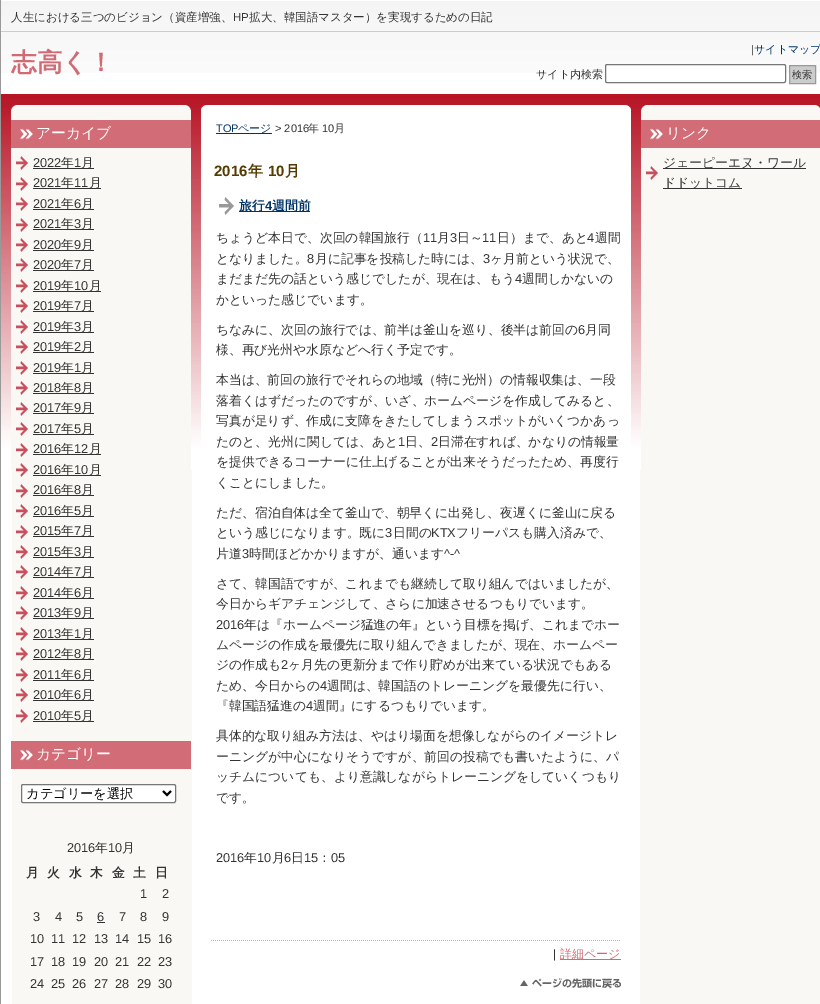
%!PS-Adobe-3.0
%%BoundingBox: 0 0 820 1004
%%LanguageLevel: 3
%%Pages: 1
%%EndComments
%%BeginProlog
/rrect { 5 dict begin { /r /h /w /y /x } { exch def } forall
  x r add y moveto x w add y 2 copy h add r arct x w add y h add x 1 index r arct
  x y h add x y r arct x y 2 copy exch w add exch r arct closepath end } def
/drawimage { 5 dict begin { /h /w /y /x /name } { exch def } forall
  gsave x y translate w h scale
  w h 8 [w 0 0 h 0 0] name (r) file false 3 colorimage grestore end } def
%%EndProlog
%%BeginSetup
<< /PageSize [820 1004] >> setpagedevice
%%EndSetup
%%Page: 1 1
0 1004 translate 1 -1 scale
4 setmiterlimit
1 setgray
0 0 820 1004 rectfill
(images/1.raw) 12 470 808 534 drawimage
0.6 setgray
0 0 1 1004 rectfill
(images/2.raw) 1 1 819 72 drawimage
0.718 0.078 0.145 setrgbcolor
1 94 819 1 rectfill
(images/3.raw) 1 28 819 5 drawimage
1 setgray
605.5 64.5 180 18 1.5 rrect gsave fill grestore
0.463 setgray
stroke
0.8 setgray
newpath 789.5 65.5 moveto 815.5 65.5 lineto 815.5 83.5 lineto 789.5 83.5 lineto closepath gsave fill grestore
0.6 setgray
stroke
(images/4.raw) 1 95 819 375 drawimage
(images/5.raw) 11 120 180 28 drawimage
(images/6.raw) 16 156 12 14 drawimage
0.2 setgray
33 168 61 1 rectfill
(images/6.raw) 16 177 12 14 drawimage
33 188 68 1 rectfill
(images/6.raw) 16 197 12 14 drawimage
33 209 61 1 rectfill
(images/6.raw) 16 218 12 14 drawimage
33 229 61 1 rectfill
(images/6.raw) 16 238 12 14 drawimage
33 250 61 1 rectfill
(images/6.raw) 16 258 12 14 drawimage
33 270 61 1 rectfill
(images/6.raw) 16 279 12 14 drawimage
33 291 68 1 rectfill
(images/6.raw) 16 299 12 14 drawimage
33 311 61 1 rectfill
(images/6.raw) 16 320 12 14 drawimage
33 332 61 1 rectfill
(images/6.raw) 16 340 12 14 drawimage
33 352 61 1 rectfill
(images/6.raw) 16 361 12 14 drawimage
33 373 61 1 rectfill
(images/6.raw) 16 381 12 14 drawimage
33 393 61 1 rectfill
(images/6.raw) 16 402 12 14 drawimage
33 413 61 1 rectfill
(images/6.raw) 16 422 12 14 drawimage
33 434 61 1 rectfill
(images/6.raw) 16 443 12 14 drawimage
33 454 68 1 rectfill
(images/6.raw) 16 463 12 14 drawimage
33 475 68 1 rectfill
(images/6.raw) 16 484 12 14 drawimage
33 495 61 1 rectfill
(images/6.raw) 16 504 12 14 drawimage
33 516 61 1 rectfill
(images/6.raw) 16 525 12 14 drawimage
33 536 61 1 rectfill
(images/6.raw) 16 545 12 14 drawimage
33 557 61 1 rectfill
(images/6.raw) 16 565 12 14 drawimage
33 577 61 1 rectfill
(images/6.raw) 16 586 12 14 drawimage
33 598 61 1 rectfill
(images/6.raw) 16 606 12 14 drawimage
33 618 61 1 rectfill
(images/6.raw) 16 627 12 14 drawimage
33 639 61 1 rectfill
(images/6.raw) 16 647 12 14 drawimage
33 659 61 1 rectfill
(images/6.raw) 16 668 12 14 drawimage
33 680 61 1 rectfill
(images/6.raw) 16 688 12 14 drawimage
33 700 61 1 rectfill
(images/6.raw) 16 709 12 14 drawimage
33 721 61 1 rectfill
(images/5.raw) 11 741 180 28 drawimage
1 setgray
21.5 784.5 154 18 1.5 rrect gsave fill grestore
0.463 setgray
stroke
0 setgray
2 setlinewidth
newpath 163 791 moveto 167 795 lineto 171 791 lineto stroke
0.2 setgray
97 922 8 1 rectfill
0 0.204 0.4 setrgbcolor
216 133 56 1 rectfill
(images/7.raw) 219 197 15 18 drawimage
239 211 71 1 rectfill
(images/8.raw) 211 940 409 1 drawimage
0.816 0.42 0.451 setrgbcolor
560 959 61 1 rectfill
(images/9.raw) 520 978 101 11 drawimage
(images/10.raw) 641 120 179 28 drawimage
(images/6.raw) 646 166 12 14 drawimage
0.2 setgray
663 168 143 1 rectfill
663 188 79 1 rectfill
/WenQuanYiZenHei-Medium [11.5 0 0 -11.5 0 0] selectfont
11 21 moveto (人生における三つのビジョン（資産増強、) show
/LiberationSans-Regular [11.5 0 0 -11.5 0 0] selectfont
233 21 moveto (HP) show
/WenQuanYiZenHei-Medium [11.5 0 0 -11.5 0 0] selectfont
249 21 moveto (拡大、韓国語マスター）を実現するための日記) show
/WenQuanYiZenHei-Bold [25.5 0 0 -25.5 0 0] selectfont
0.816 0.42 0.451 setrgbcolor
11 71 moveto (志高く！) show
/LiberationSans-Regular [11 0 0 -11 0 0] selectfont
0.2 setgray
751 53 moveto (|) show
/WenQuanYiZenHei-Medium [11 0 0 -11 0 0] selectfont
0 0.204 0.4 setrgbcolor
754 53 moveto (サイトマップ) show
0.2 setgray
536 78 moveto (サイト内検索) show
/WenQuanYiZenHei-Medium [10 0 0 -10 0 0] selectfont
792 78 moveto (検索) show
/WenQuanYiZenHei-Medium [14.75 0 0 -14.75 0 0] selectfont
1 setgray
36 138 moveto (アーカイブ) show
/LiberationSans-Regular [12.8 0 0 -12.8 0 0] selectfont
0.2 setgray
33 167 moveto (2022) show
/WenQuanYiZenHei-Medium [12.8 0 0 -12.8 0 0] selectfont
61 167 moveto (年) show
/LiberationSans-Regular [12.8 0 0 -12.8 0 0] selectfont
74 167 moveto (1) show
/WenQuanYiZenHei-Medium [12.8 0 0 -12.8 0 0] selectfont
81 167 moveto (月) show
/LiberationSans-Regular [12.8 0 0 -12.8 0 0] selectfont
33 187 moveto (2021) show
/WenQuanYiZenHei-Medium [12.8 0 0 -12.8 0 0] selectfont
61 187 moveto (年) show
/LiberationSans-Regular [12.8 0 0 -12.8 0 0] selectfont
74 187 moveto (11) show
/WenQuanYiZenHei-Medium [12.8 0 0 -12.8 0 0] selectfont
89 187 moveto (月) show
/LiberationSans-Regular [12.8 0 0 -12.8 0 0] selectfont
33 208 moveto (2021) show
/WenQuanYiZenHei-Medium [12.8 0 0 -12.8 0 0] selectfont
61 208 moveto (年) show
/LiberationSans-Regular [12.8 0 0 -12.8 0 0] selectfont
74 208 moveto (6) show
/WenQuanYiZenHei-Medium [12.8 0 0 -12.8 0 0] selectfont
81 208 moveto (月) show
/LiberationSans-Regular [12.8 0 0 -12.8 0 0] selectfont
33 228 moveto (2021) show
/WenQuanYiZenHei-Medium [12.8 0 0 -12.8 0 0] selectfont
61 228 moveto (年) show
/LiberationSans-Regular [12.8 0 0 -12.8 0 0] selectfont
74 228 moveto (3) show
/WenQuanYiZenHei-Medium [12.8 0 0 -12.8 0 0] selectfont
81 228 moveto (月) show
/LiberationSans-Regular [12.8 0 0 -12.8 0 0] selectfont
33 249 moveto (2020) show
/WenQuanYiZenHei-Medium [12.8 0 0 -12.8 0 0] selectfont
61 249 moveto (年) show
/LiberationSans-Regular [12.8 0 0 -12.8 0 0] selectfont
74 249 moveto (9) show
/WenQuanYiZenHei-Medium [12.8 0 0 -12.8 0 0] selectfont
81 249 moveto (月) show
/LiberationSans-Regular [12.8 0 0 -12.8 0 0] selectfont
33 269 moveto (2020) show
/WenQuanYiZenHei-Medium [12.8 0 0 -12.8 0 0] selectfont
61 269 moveto (年) show
/LiberationSans-Regular [12.8 0 0 -12.8 0 0] selectfont
74 269 moveto (7) show
/WenQuanYiZenHei-Medium [12.8 0 0 -12.8 0 0] selectfont
81 269 moveto (月) show
/LiberationSans-Regular [12.8 0 0 -12.8 0 0] selectfont
33 290 moveto (2019) show
/WenQuanYiZenHei-Medium [12.8 0 0 -12.8 0 0] selectfont
61 290 moveto (年) show
/LiberationSans-Regular [12.8 0 0 -12.8 0 0] selectfont
74 290 moveto (10) show
/WenQuanYiZenHei-Medium [12.8 0 0 -12.8 0 0] selectfont
89 290 moveto (月) show
/LiberationSans-Regular [12.8 0 0 -12.8 0 0] selectfont
33 310 moveto (2019) show
/WenQuanYiZenHei-Medium [12.8 0 0 -12.8 0 0] selectfont
61 310 moveto (年) show
/LiberationSans-Regular [12.8 0 0 -12.8 0 0] selectfont
74 310 moveto (7) show
/WenQuanYiZenHei-Medium [12.8 0 0 -12.8 0 0] selectfont
81 310 moveto (月) show
/LiberationSans-Regular [12.8 0 0 -12.8 0 0] selectfont
33 331 moveto (2019) show
/WenQuanYiZenHei-Medium [12.8 0 0 -12.8 0 0] selectfont
61 331 moveto (年) show
/LiberationSans-Regular [12.8 0 0 -12.8 0 0] selectfont
74 331 moveto (3) show
/WenQuanYiZenHei-Medium [12.8 0 0 -12.8 0 0] selectfont
81 331 moveto (月) show
/LiberationSans-Regular [12.8 0 0 -12.8 0 0] selectfont
33 351 moveto (2019) show
/WenQuanYiZenHei-Medium [12.8 0 0 -12.8 0 0] selectfont
61 351 moveto (年) show
/LiberationSans-Regular [12.8 0 0 -12.8 0 0] selectfont
74 351 moveto (2) show
/WenQuanYiZenHei-Medium [12.8 0 0 -12.8 0 0] selectfont
81 351 moveto (月) show
/LiberationSans-Regular [12.8 0 0 -12.8 0 0] selectfont
33 372 moveto (2019) show
/WenQuanYiZenHei-Medium [12.8 0 0 -12.8 0 0] selectfont
61 372 moveto (年) show
/LiberationSans-Regular [12.8 0 0 -12.8 0 0] selectfont
74 372 moveto (1) show
/WenQuanYiZenHei-Medium [12.8 0 0 -12.8 0 0] selectfont
81 372 moveto (月) show
/LiberationSans-Regular [12.8 0 0 -12.8 0 0] selectfont
33 392 moveto (2018) show
/WenQuanYiZenHei-Medium [12.8 0 0 -12.8 0 0] selectfont
61 392 moveto (年) show
/LiberationSans-Regular [12.8 0 0 -12.8 0 0] selectfont
74 392 moveto (8) show
/WenQuanYiZenHei-Medium [12.8 0 0 -12.8 0 0] selectfont
81 392 moveto (月) show
/LiberationSans-Regular [12.8 0 0 -12.8 0 0] selectfont
33 412 moveto (2017) show
/WenQuanYiZenHei-Medium [12.8 0 0 -12.8 0 0] selectfont
61 412 moveto (年) show
/LiberationSans-Regular [12.8 0 0 -12.8 0 0] selectfont
74 412 moveto (9) show
/WenQuanYiZenHei-Medium [12.8 0 0 -12.8 0 0] selectfont
81 412 moveto (月) show
/LiberationSans-Regular [12.8 0 0 -12.8 0 0] selectfont
33 433 moveto (2017) show
/WenQuanYiZenHei-Medium [12.8 0 0 -12.8 0 0] selectfont
61 433 moveto (年) show
/LiberationSans-Regular [12.8 0 0 -12.8 0 0] selectfont
74 433 moveto (5) show
/WenQuanYiZenHei-Medium [12.8 0 0 -12.8 0 0] selectfont
81 433 moveto (月) show
/LiberationSans-Regular [12.8 0 0 -12.8 0 0] selectfont
33 453 moveto (2016) show
/WenQuanYiZenHei-Medium [12.8 0 0 -12.8 0 0] selectfont
61 453 moveto (年) show
/LiberationSans-Regular [12.8 0 0 -12.8 0 0] selectfont
74 453 moveto (12) show
/WenQuanYiZenHei-Medium [12.8 0 0 -12.8 0 0] selectfont
89 453 moveto (月) show
/LiberationSans-Regular [12.8 0 0 -12.8 0 0] selectfont
33 474 moveto (2016) show
/WenQuanYiZenHei-Medium [12.8 0 0 -12.8 0 0] selectfont
61 474 moveto (年) show
/LiberationSans-Regular [12.8 0 0 -12.8 0 0] selectfont
74 474 moveto (10) show
/WenQuanYiZenHei-Medium [12.8 0 0 -12.8 0 0] selectfont
89 474 moveto (月) show
/LiberationSans-Regular [12.8 0 0 -12.8 0 0] selectfont
33 494 moveto (2016) show
/WenQuanYiZenHei-Medium [12.8 0 0 -12.8 0 0] selectfont
61 494 moveto (年) show
/LiberationSans-Regular [12.8 0 0 -12.8 0 0] selectfont
74 494 moveto (8) show
/WenQuanYiZenHei-Medium [12.8 0 0 -12.8 0 0] selectfont
81 494 moveto (月) show
/LiberationSans-Regular [12.8 0 0 -12.8 0 0] selectfont
33 515 moveto (2016) show
/WenQuanYiZenHei-Medium [12.8 0 0 -12.8 0 0] selectfont
61 515 moveto (年) show
/LiberationSans-Regular [12.8 0 0 -12.8 0 0] selectfont
74 515 moveto (5) show
/WenQuanYiZenHei-Medium [12.8 0 0 -12.8 0 0] selectfont
81 515 moveto (月) show
/LiberationSans-Regular [12.8 0 0 -12.8 0 0] selectfont
33 535 moveto (2015) show
/WenQuanYiZenHei-Medium [12.8 0 0 -12.8 0 0] selectfont
61 535 moveto (年) show
/LiberationSans-Regular [12.8 0 0 -12.8 0 0] selectfont
74 535 moveto (7) show
/WenQuanYiZenHei-Medium [12.8 0 0 -12.8 0 0] selectfont
81 535 moveto (月) show
/LiberationSans-Regular [12.8 0 0 -12.8 0 0] selectfont
33 556 moveto (2015) show
/WenQuanYiZenHei-Medium [12.8 0 0 -12.8 0 0] selectfont
61 556 moveto (年) show
/LiberationSans-Regular [12.8 0 0 -12.8 0 0] selectfont
74 556 moveto (3) show
/WenQuanYiZenHei-Medium [12.8 0 0 -12.8 0 0] selectfont
81 556 moveto (月) show
/LiberationSans-Regular [12.8 0 0 -12.8 0 0] selectfont
33 576 moveto (2014) show
/WenQuanYiZenHei-Medium [12.8 0 0 -12.8 0 0] selectfont
61 576 moveto (年) show
/LiberationSans-Regular [12.8 0 0 -12.8 0 0] selectfont
74 576 moveto (7) show
/WenQuanYiZenHei-Medium [12.8 0 0 -12.8 0 0] selectfont
81 576 moveto (月) show
/LiberationSans-Regular [12.8 0 0 -12.8 0 0] selectfont
33 597 moveto (2014) show
/WenQuanYiZenHei-Medium [12.8 0 0 -12.8 0 0] selectfont
61 597 moveto (年) show
/LiberationSans-Regular [12.8 0 0 -12.8 0 0] selectfont
74 597 moveto (6) show
/WenQuanYiZenHei-Medium [12.8 0 0 -12.8 0 0] selectfont
81 597 moveto (月) show
/LiberationSans-Regular [12.8 0 0 -12.8 0 0] selectfont
33 617 moveto (2013) show
/WenQuanYiZenHei-Medium [12.8 0 0 -12.8 0 0] selectfont
61 617 moveto (年) show
/LiberationSans-Regular [12.8 0 0 -12.8 0 0] selectfont
74 617 moveto (9) show
/WenQuanYiZenHei-Medium [12.8 0 0 -12.8 0 0] selectfont
81 617 moveto (月) show
/LiberationSans-Regular [12.8 0 0 -12.8 0 0] selectfont
33 638 moveto (2013) show
/WenQuanYiZenHei-Medium [12.8 0 0 -12.8 0 0] selectfont
61 638 moveto (年) show
/LiberationSans-Regular [12.8 0 0 -12.8 0 0] selectfont
74 638 moveto (1) show
/WenQuanYiZenHei-Medium [12.8 0 0 -12.8 0 0] selectfont
81 638 moveto (月) show
/LiberationSans-Regular [12.8 0 0 -12.8 0 0] selectfont
33 658 moveto (2012) show
/WenQuanYiZenHei-Medium [12.8 0 0 -12.8 0 0] selectfont
61 658 moveto (年) show
/LiberationSans-Regular [12.8 0 0 -12.8 0 0] selectfont
74 658 moveto (8) show
/WenQuanYiZenHei-Medium [12.8 0 0 -12.8 0 0] selectfont
81 658 moveto (月) show
/LiberationSans-Regular [12.8 0 0 -12.8 0 0] selectfont
33 679 moveto (2011) show
/WenQuanYiZenHei-Medium [12.8 0 0 -12.8 0 0] selectfont
61 679 moveto (年) show
/LiberationSans-Regular [12.8 0 0 -12.8 0 0] selectfont
74 679 moveto (6) show
/WenQuanYiZenHei-Medium [12.8 0 0 -12.8 0 0] selectfont
81 679 moveto (月) show
/LiberationSans-Regular [12.8 0 0 -12.8 0 0] selectfont
33 699 moveto (2010) show
/WenQuanYiZenHei-Medium [12.8 0 0 -12.8 0 0] selectfont
61 699 moveto (年) show
/LiberationSans-Regular [12.8 0 0 -12.8 0 0] selectfont
74 699 moveto (6) show
/WenQuanYiZenHei-Medium [12.8 0 0 -12.8 0 0] selectfont
81 699 moveto (月) show
/LiberationSans-Regular [12.8 0 0 -12.8 0 0] selectfont
33 720 moveto (2010) show
/WenQuanYiZenHei-Medium [12.8 0 0 -12.8 0 0] selectfont
61 720 moveto (年) show
/LiberationSans-Regular [12.8 0 0 -12.8 0 0] selectfont
74 720 moveto (5) show
/WenQuanYiZenHei-Medium [12.8 0 0 -12.8 0 0] selectfont
81 720 moveto (月) show
/WenQuanYiZenHei-Medium [14.75 0 0 -14.75 0 0] selectfont
1 setgray
36 759 moveto (カテゴリー) show
/WenQuanYiZenHei-Medium [13.25 0 0 -13.25 0 0] selectfont
0 setgray
26 798 moveto (カテゴリーを選択) show
/LiberationSans-Regular [12.8 0 0 -12.8 0 0] selectfont
0.2 setgray
67 852 moveto (2016) show
/WenQuanYiZenHei-Medium [12.8 0 0 -12.8 0 0] selectfont
95 852 moveto (年) show
/LiberationSans-Regular [12.8 0 0 -12.8 0 0] selectfont
108 852 moveto (10) show
/WenQuanYiZenHei-Medium [12.8 0 0 -12.8 0 0] selectfont
122 852 moveto (月) show
/WenQuanYiZenHei-Bold [12.8 0 0 -12.8 0 0] selectfont
26 877 moveto (月) show
47 877 moveto (火) show
69 877 moveto (水) show
90 877 moveto (木) show
112 877 moveto (金) show
133 877 moveto (土) show
155 877 moveto (日) show
/LiberationSans-Regular [12.8 0 0 -12.8 0 0] selectfont
140 898 moveto (1) show
162 898 moveto (2) show
33 921 moveto (3) show
55 921 moveto (4) show
76 921 moveto (5) show
97 921 moveto (6) show
119 921 moveto (7) show
140 921 moveto (8) show
162 921 moveto (9) show
30 943 moveto (10) show
51 943 moveto (11) show
72 943 moveto (12) show
94 943 moveto (13) show
115 943 moveto (14) show
137 943 moveto (15) show
158 943 moveto (16) show
30 966 moveto (17) show
51 966 moveto (18) show
72 966 moveto (19) show
94 966 moveto (20) show
115 966 moveto (21) show
137 966 moveto (22) show
158 966 moveto (23) show
30 988 moveto (24) show
51 988 moveto (25) show
72 988 moveto (26) show
94 988 moveto (27) show
115 988 moveto (28) show
137 988 moveto (29) show
158 988 moveto (30) show
/LiberationSans-Regular [11 0 0 -11 0 0] selectfont
0 0.204 0.4 setrgbcolor
216 132 moveto (TOP) show
/WenQuanYiZenHei-Medium [11 0 0 -11 0 0] selectfont
238 132 moveto (ページ) show
/LiberationSans-Regular [11 0 0 -11 0 0] selectfont
0.2 setgray
275 132 moveto (> 2016) show
/WenQuanYiZenHei-Medium [11 0 0 -11 0 0] selectfont
308 132 moveto (年) show
/LiberationSans-Regular [11 0 0 -11 0 0] selectfont
322 132 moveto (10) show
/WenQuanYiZenHei-Medium [11 0 0 -11 0 0] selectfont
334 132 moveto (月) show
/LiberationSans-Bold [15 0 0 -15 0 0] selectfont
0.333 0.231 0 setrgbcolor
214 176 moveto (2016) show
/WenQuanYiZenHei-Bold [15 0 0 -15 0 0] selectfont
248 176 moveto (年) show
/LiberationSans-Bold [15 0 0 -15 0 0] selectfont
268 176 moveto (10) show
/WenQuanYiZenHei-Bold [15 0 0 -15 0 0] selectfont
285 176 moveto (月) show
/WenQuanYiZenHei-Bold [12.8 0 0 -12.8 0 0] selectfont
0 0.204 0.4 setrgbcolor
239 210 moveto (旅行) show
/LiberationSans-Bold [12.8 0 0 -12.8 0 0] selectfont
265 210 moveto (4) show
/WenQuanYiZenHei-Bold [12.8 0 0 -12.8 0 0] selectfont
272 210 moveto (週間前) show
/WenQuanYiZenHei-Medium [12.8 0 0 -12.8 0 0] selectfont
0.2 setgray
216 242 moveto (ちょうど本日で、次回の韓国旅行（) show
/LiberationSans-Regular [12.8 0 0 -12.8 0 0] selectfont
423 242 moveto (11) show
/WenQuanYiZenHei-Medium [12.8 0 0 -12.8 0 0] selectfont
437 242 moveto (月) show
/LiberationSans-Regular [12.8 0 0 -12.8 0 0] selectfont
450 242 moveto (3) show
/WenQuanYiZenHei-Medium [12.8 0 0 -12.8 0 0] selectfont
457 242 moveto (日～) show
/LiberationSans-Regular [12.8 0 0 -12.8 0 0] selectfont
482 242 moveto (11) show
/WenQuanYiZenHei-Medium [12.8 0 0 -12.8 0 0] selectfont
497 242 moveto (日）まで、あと) show
/LiberationSans-Regular [12.8 0 0 -12.8 0 0] selectfont
587 242 moveto (4) show
/WenQuanYiZenHei-Medium [12.8 0 0 -12.8 0 0] selectfont
595 242 moveto (週間) show
216 263 moveto (となりました。) show
/LiberationSans-Regular [12.8 0 0 -12.8 0 0] selectfont
307 263 moveto (8) show
/WenQuanYiZenHei-Medium [12.8 0 0 -12.8 0 0] selectfont
315 263 moveto (月に記事を投稿した時には、) show
/LiberationSans-Regular [12.8 0 0 -12.8 0 0] selectfont
483 263 moveto (3) show
/WenQuanYiZenHei-Medium [12.8 0 0 -12.8 0 0] selectfont
490 263 moveto (ヶ月前という状況で、) show
216 283 moveto (まだまだ先の話という感じでしたが、現在は、もう) show
/LiberationSans-Regular [12.8 0 0 -12.8 0 0] selectfont
515 283 moveto (4) show
/WenQuanYiZenHei-Medium [12.8 0 0 -12.8 0 0] selectfont
522 283 moveto (週間しかないの) show
216 304 moveto (かといった感じでいます。) show
216 334 moveto (ちなみに、次回の旅行では、前半は釜山を巡り、後半は前回の) show
/LiberationSans-Regular [12.8 0 0 -12.8 0 0] selectfont
578 334 moveto (6) show
/WenQuanYiZenHei-Medium [12.8 0 0 -12.8 0 0] selectfont
585 334 moveto (月同) show
216 354 moveto (様、再び光州や水原などへ行く予定です。) show
216 384 moveto (本当は、前回の旅行でそれらの地域（特に光州）の情報収集は、一段) show
216 405 moveto (落着くはずだったのですが、いざ、ホームページを作成してみると、) show
216 425 moveto (写真が足りず、作成に支障をきたしてしまうスポットがいくつかあっ) show
216 446 moveto (たのと、光州に関しては、あと) show
/LiberationSans-Regular [12.8 0 0 -12.8 0 0] selectfont
398 446 moveto (1) show
/WenQuanYiZenHei-Medium [12.8 0 0 -12.8 0 0] selectfont
405 446 moveto (日、) show
/LiberationSans-Regular [12.8 0 0 -12.8 0 0] selectfont
431 446 moveto (2) show
/WenQuanYiZenHei-Medium [12.8 0 0 -12.8 0 0] selectfont
438 446 moveto (日滞在すれば、かなりの情報量) show
216 466 moveto (を提供できるコーナーに仕上げることが出来そうだったため、再度行) show
216 487 moveto (くことにしました。) show
216 517 moveto (ただ、宿泊自体は全て釜山で、朝早くに出発し、夜遅くに釜山に戻る) show
216 537 moveto (という感じになります。既に) show
/LiberationSans-Regular [12.8 0 0 -12.8 0 0] selectfont
385 537 moveto (3) show
/WenQuanYiZenHei-Medium [12.8 0 0 -12.8 0 0] selectfont
393 537 moveto (日間の) show
/LiberationSans-Regular [12.8 0 0 -12.8 0 0] selectfont
431 537 moveto (KTX) show
/WenQuanYiZenHei-Medium [12.8 0 0 -12.8 0 0] selectfont
456 537 moveto (フリーパスも購入済みで、) show
216 558 moveto (片道) show
/LiberationSans-Regular [12.8 0 0 -12.8 0 0] selectfont
242 558 moveto (3) show
/WenQuanYiZenHei-Medium [12.8 0 0 -12.8 0 0] selectfont
249 558 moveto (時間ほどかかりますが、通います) show
/LiberationSans-Regular [12.8 0 0 -12.8 0 0] selectfont
444 558 moveto (^-^) show
/WenQuanYiZenHei-Medium [12.8 0 0 -12.8 0 0] selectfont
216 588 moveto (さて、韓国語ですが、これまでも継続して取り組んではいましたが、) show
216 608 moveto (今日からギアチェンジして、さらに加速させるつもりでいます。) show
/LiberationSans-Regular [12.8 0 0 -12.8 0 0] selectfont
216 629 moveto (2016) show
/WenQuanYiZenHei-Medium [12.8 0 0 -12.8 0 0] selectfont
244 629 moveto (年は『ホームページ猛進の年』という目標を掲げ、これまでホー) show
216 649 moveto (ムページの作成を最優先に取り組んできましたが、現在、ホームペー) show
216 669 moveto (ジの作成も) show
/LiberationSans-Regular [12.8 0 0 -12.8 0 0] selectfont
281 669 moveto (2) show
/WenQuanYiZenHei-Medium [12.8 0 0 -12.8 0 0] selectfont
288 669 moveto (ヶ月先の更新分まで作り貯めが出来ている状況でもある) show
216 690 moveto (ため、今日からの) show
/LiberationSans-Regular [12.8 0 0 -12.8 0 0] selectfont
320 690 moveto (4) show
/WenQuanYiZenHei-Medium [12.8 0 0 -12.8 0 0] selectfont
327 690 moveto (週間は、韓国語のトレーニングを最優先に行い、) show
216 710 moveto (『韓国語猛進の) show
/LiberationSans-Regular [12.8 0 0 -12.8 0 0] selectfont
306 710 moveto (4) show
/WenQuanYiZenHei-Medium [12.8 0 0 -12.8 0 0] selectfont
313 710 moveto (週間』にするつもりでいます。) show
216 740 moveto (具体的な取り組み方法は、やはり場面を想像しながらのイメージトレ) show
216 761 moveto (ーニングが中心になりそうですが、前回の投稿でも書いたように、パ) show
216 781 moveto (ッチムについても、より意識しながらトレーニングをしていくつもり) show
216 802 moveto (です。) show
/LiberationSans-Regular [12.8 0 0 -12.8 0 0] selectfont
216 862 moveto (2016) show
/WenQuanYiZenHei-Medium [12.8 0 0 -12.8 0 0] selectfont
244 862 moveto (年) show
/LiberationSans-Regular [12.8 0 0 -12.8 0 0] selectfont
257 862 moveto (10) show
/WenQuanYiZenHei-Medium [12.8 0 0 -12.8 0 0] selectfont
272 862 moveto (月) show
/LiberationSans-Regular [12.8 0 0 -12.8 0 0] selectfont
284 862 moveto (6) show
/WenQuanYiZenHei-Medium [12.8 0 0 -12.8 0 0] selectfont
291 862 moveto (日) show
/LiberationSans-Regular [12.8 0 0 -12.8 0 0] selectfont
304 862 moveto (15) show
/WenQuanYiZenHei-Medium [12.8 0 0 -12.8 0 0] selectfont
318 862 moveto (：) show
/LiberationSans-Regular [12.8 0 0 -12.8 0 0] selectfont
331 862 moveto (05) show
/LiberationSans-Regular [12 0 0 -12 0 0] selectfont
553 958 moveto (|) show
/WenQuanYiZenHei-Medium [12 0 0 -12 0 0] selectfont
0.816 0.42 0.451 setrgbcolor
560 958 moveto (詳細ページ) show
/WenQuanYiZenHei-Medium [14.75 0 0 -14.75 0 0] selectfont
1 setgray
666 138 moveto (リンク) show
/WenQuanYiZenHei-Medium [12.8 0 0 -12.8 0 0] selectfont
0.2 setgray
663 167 moveto (ジェーピーエヌ・ワール) show
663 187 moveto (ドドットコム) show
showpage
%%EOF
